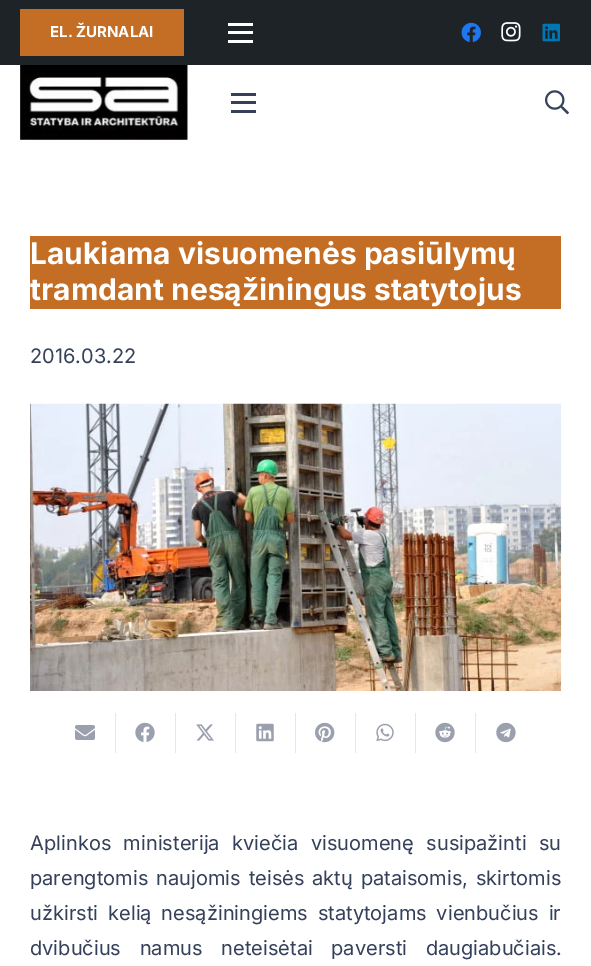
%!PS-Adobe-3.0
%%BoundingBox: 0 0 591 966
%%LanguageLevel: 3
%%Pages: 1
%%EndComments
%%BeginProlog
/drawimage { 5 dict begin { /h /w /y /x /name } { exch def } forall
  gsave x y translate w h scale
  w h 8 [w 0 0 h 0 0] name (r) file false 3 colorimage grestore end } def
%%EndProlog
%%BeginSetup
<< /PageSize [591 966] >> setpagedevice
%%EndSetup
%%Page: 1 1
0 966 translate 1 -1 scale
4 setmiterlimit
1 setgray
0 0 591 966 rectfill
0.114 0.137 0.153 setrgbcolor
0 0 591 65 rectfill
0.769 0.427 0.145 setrgbcolor
20 9 164 47 rectfill
1 setgray
228 31 25 3 rectfill
228 23 25 3 rectfill
228 40 25 3 rectfill
(images/1.raw) 461 22 20 20 drawimage
(images/2.raw) 501 22 20 20 drawimage
(images/3.raw) 542 23 18 19 drawimage
(images/4.raw) 20 65 168 75 drawimage
0.208 0.255 0.357 setrgbcolor
231 101 25 3 rectfill
231 93 25 3 rectfill
231 110 25 3 rectfill
(images/5.raw) 545 90 24 25 drawimage
0.769 0.427 0.145 setrgbcolor
30 236 531 73 rectfill
(images/6.raw) 30 403 532 288 drawimage
0.89 0.906 0.941 setrgbcolor
115 713 1 40 rectfill
(images/7.raw) 75 725 20 15 drawimage
175 713 1 40 rectfill
(images/8.raw) 135 722 20 20 drawimage
235 713 1 40 rectfill
(images/9.raw) 196 724 18 17 drawimage
295 713 1 40 rectfill
(images/10.raw) 256 723 18 19 drawimage
355 713 1 40 rectfill
(images/11.raw) 315 722 20 21 drawimage
415 713 1 40 rectfill
(images/12.raw) 376 723 18 19 drawimage
475 713 1 40 rectfill
(images/13.raw) 435 722 20 21 drawimage
(images/14.raw) 496 722 20 21 drawimage
/Inter-Bold [15 0 0 -15 0 0] selectfont
1 setgray
50 37 moveto (EL. ŽURNALAI) show
/Inter-Bold [30 0 0 -30 0 0] selectfont
30 264 moveto (Laukiama visuomenės pasiūlymų) show
30 300 moveto (tramdant nesąžiningus statytojus) show
/Inter-Regular [20 0 0 -20 0 0] selectfont
0.208 0.255 0.357 setrgbcolor
30 363 moveto (2016.03.22) show
30 850 moveto 6.75 0 32 (Aplinkos ministerija kviečia visuomenę susipažinti su) widthshow
30 885 moveto 2.25 0 32 (parengtomis naujomis teisės aktų pataisomis, skirtomis) widthshow
30 920 moveto 4.25 0 32 (užkirsti kelią nesąžiningiems statytojams vienbučius ir) widthshow
30 955 moveto 13 0 32 (dvibučius namus neteisėtai paversti daugiabučiais.) widthshow
showpage
%%EOF
